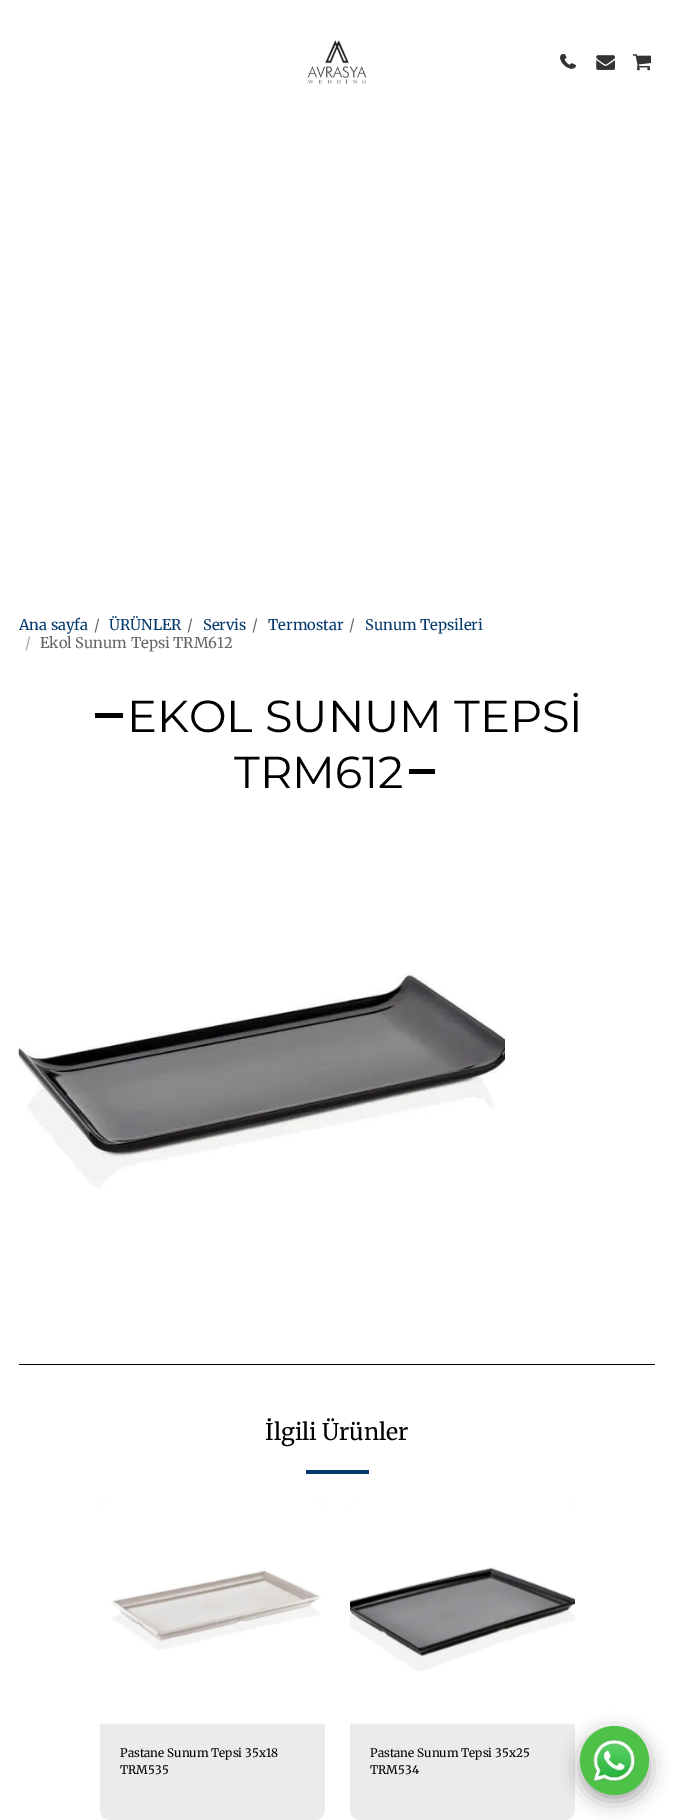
%!PS-Adobe-3.0
%%BoundingBox: 0 0 673 1820
%%LanguageLevel: 3
%%Pages: 1
%%EndComments
%%BeginProlog
/setalpha { dup .setfillconstantalpha .setstrokeconstantalpha } def
/rrect { 5 dict begin { /r /h /w /y /x } { exch def } forall
  x r add y moveto x w add y 2 copy h add r arct x w add y h add x 1 index r arct
  x y h add x y r arct x y 2 copy exch w add exch r arct closepath end } def
/softshadow { 12 dict begin { /a /b /q /h /w /y /x } { exch def } forall gsave /was 0 def
  9 -2 -9 { dup b mul 4 div /e exch def 1 sub .425 mul 2.718 exch exp 1 add a .99 .min exch div /now exch def
    1 1 now sub 1 was sub div sub setalpha /was now def
    w h .min e 2 mul add 0 gt { x e sub y e sub w e 2 mul add h e 2 mul add
      q e add b .6 mul add w h .min 2 div e add .min 0 .max rrect fill } if } for grestore end } def
/drawimage { 5 dict begin { /h /w /y /x /name } { exch def } forall
  gsave x y translate w h scale
  w h 8 [w 0 0 h 0 0] name (r) file false 3 colorimage grestore end } def
%%EndProlog
%%BeginSetup
<< /PageSize [673 1820] /PageUsesTransparency true >> setpagedevice
%%EndSetup
%%Page: 1 1
0 .pushpdf14devicefilter
0 1820 translate 1 -1 scale
4 setmiterlimit
1 setgray
0 0 673 1820 rectfill
(images/1.raw) 307 40 60 44 drawimage
(images/2.raw) 562 53 14 16 drawimage
(images/3.raw) 560 54 14 15 drawimage
(images/4.raw) 596 55 19 15 drawimage
(images/5.raw) 633 54 18 17 drawimage
0 setgray
95 713 28 5 rectfill
409 769 26 5 rectfill
(images/6.raw) 18 973 487 215 drawimage
19 1364 636 1 rectfill
0.02 0.224 0.42 setrgbcolor
306 1470 63 4 rectfill
0.922 setgray
100 1499 225 321 10 rrect fill
(images/7.raw) 100 1499 225 225 drawimage
350 1499 225 321 10 rrect fill
(images/8.raw) 350 1499 225 225 drawimage
0 setgray
580 1733 69 68 34 9.5 0.35 softshadow
0.302 0.761 0.278 setrgbcolor
newpath 614.5 1760.5 34.5 0 360 arc closepath fill
(images/9.raw) 593 1740 42 42 drawimage
/Merriweather-Regular [14.75 0 0 -14.75 0 0] selectfont
0.02 0.224 0.42 setrgbcolor
19 630 moveto (Ana sayfa) show
0.4 setgray
94 630 moveto (/) show
0.02 0.224 0.42 setrgbcolor
109 630 moveto (ÜRÜNLER) show
0.4 setgray
187 630 moveto (/) show
0.02 0.224 0.42 setrgbcolor
203 630 moveto (Servis) show
0.4 setgray
252 630 moveto (/) show
0.02 0.224 0.42 setrgbcolor
268 630 moveto (Termostar) show
0.4 setgray
349 630 moveto (/) show
0.02 0.224 0.42 setrgbcolor
365 630 moveto (Sunum Tepsileri) show
0.639 setgray
25 648 moveto (/) show
0.4 setgray
40 648 moveto (Ekol Sunum Tepsi TRM612) show
/Montserrat-Regular [44.8 0 0 -44.8 0 0] selectfont
0 setgray
127 732 moveto (EKOL SUNUM TEPSİ) show
234 788 moveto (TRM612) show
/Merriweather-Regular [23 0 0 -23 0 0] selectfont
265 1440 moveto (İlgili Ürünler) show
/Merriweather-Regular [11.75 0 0 -11.75 0 0] selectfont
120 1757 moveto (Pastane Sunum Tepsi 35x18) show
120 1774 moveto (TRM535) show
370 1757 moveto (Pastane Sunum Tepsi 35x25) show
370 1774 moveto (TRM534) show
.poppdf14devicefilter showpage
%%EOF
